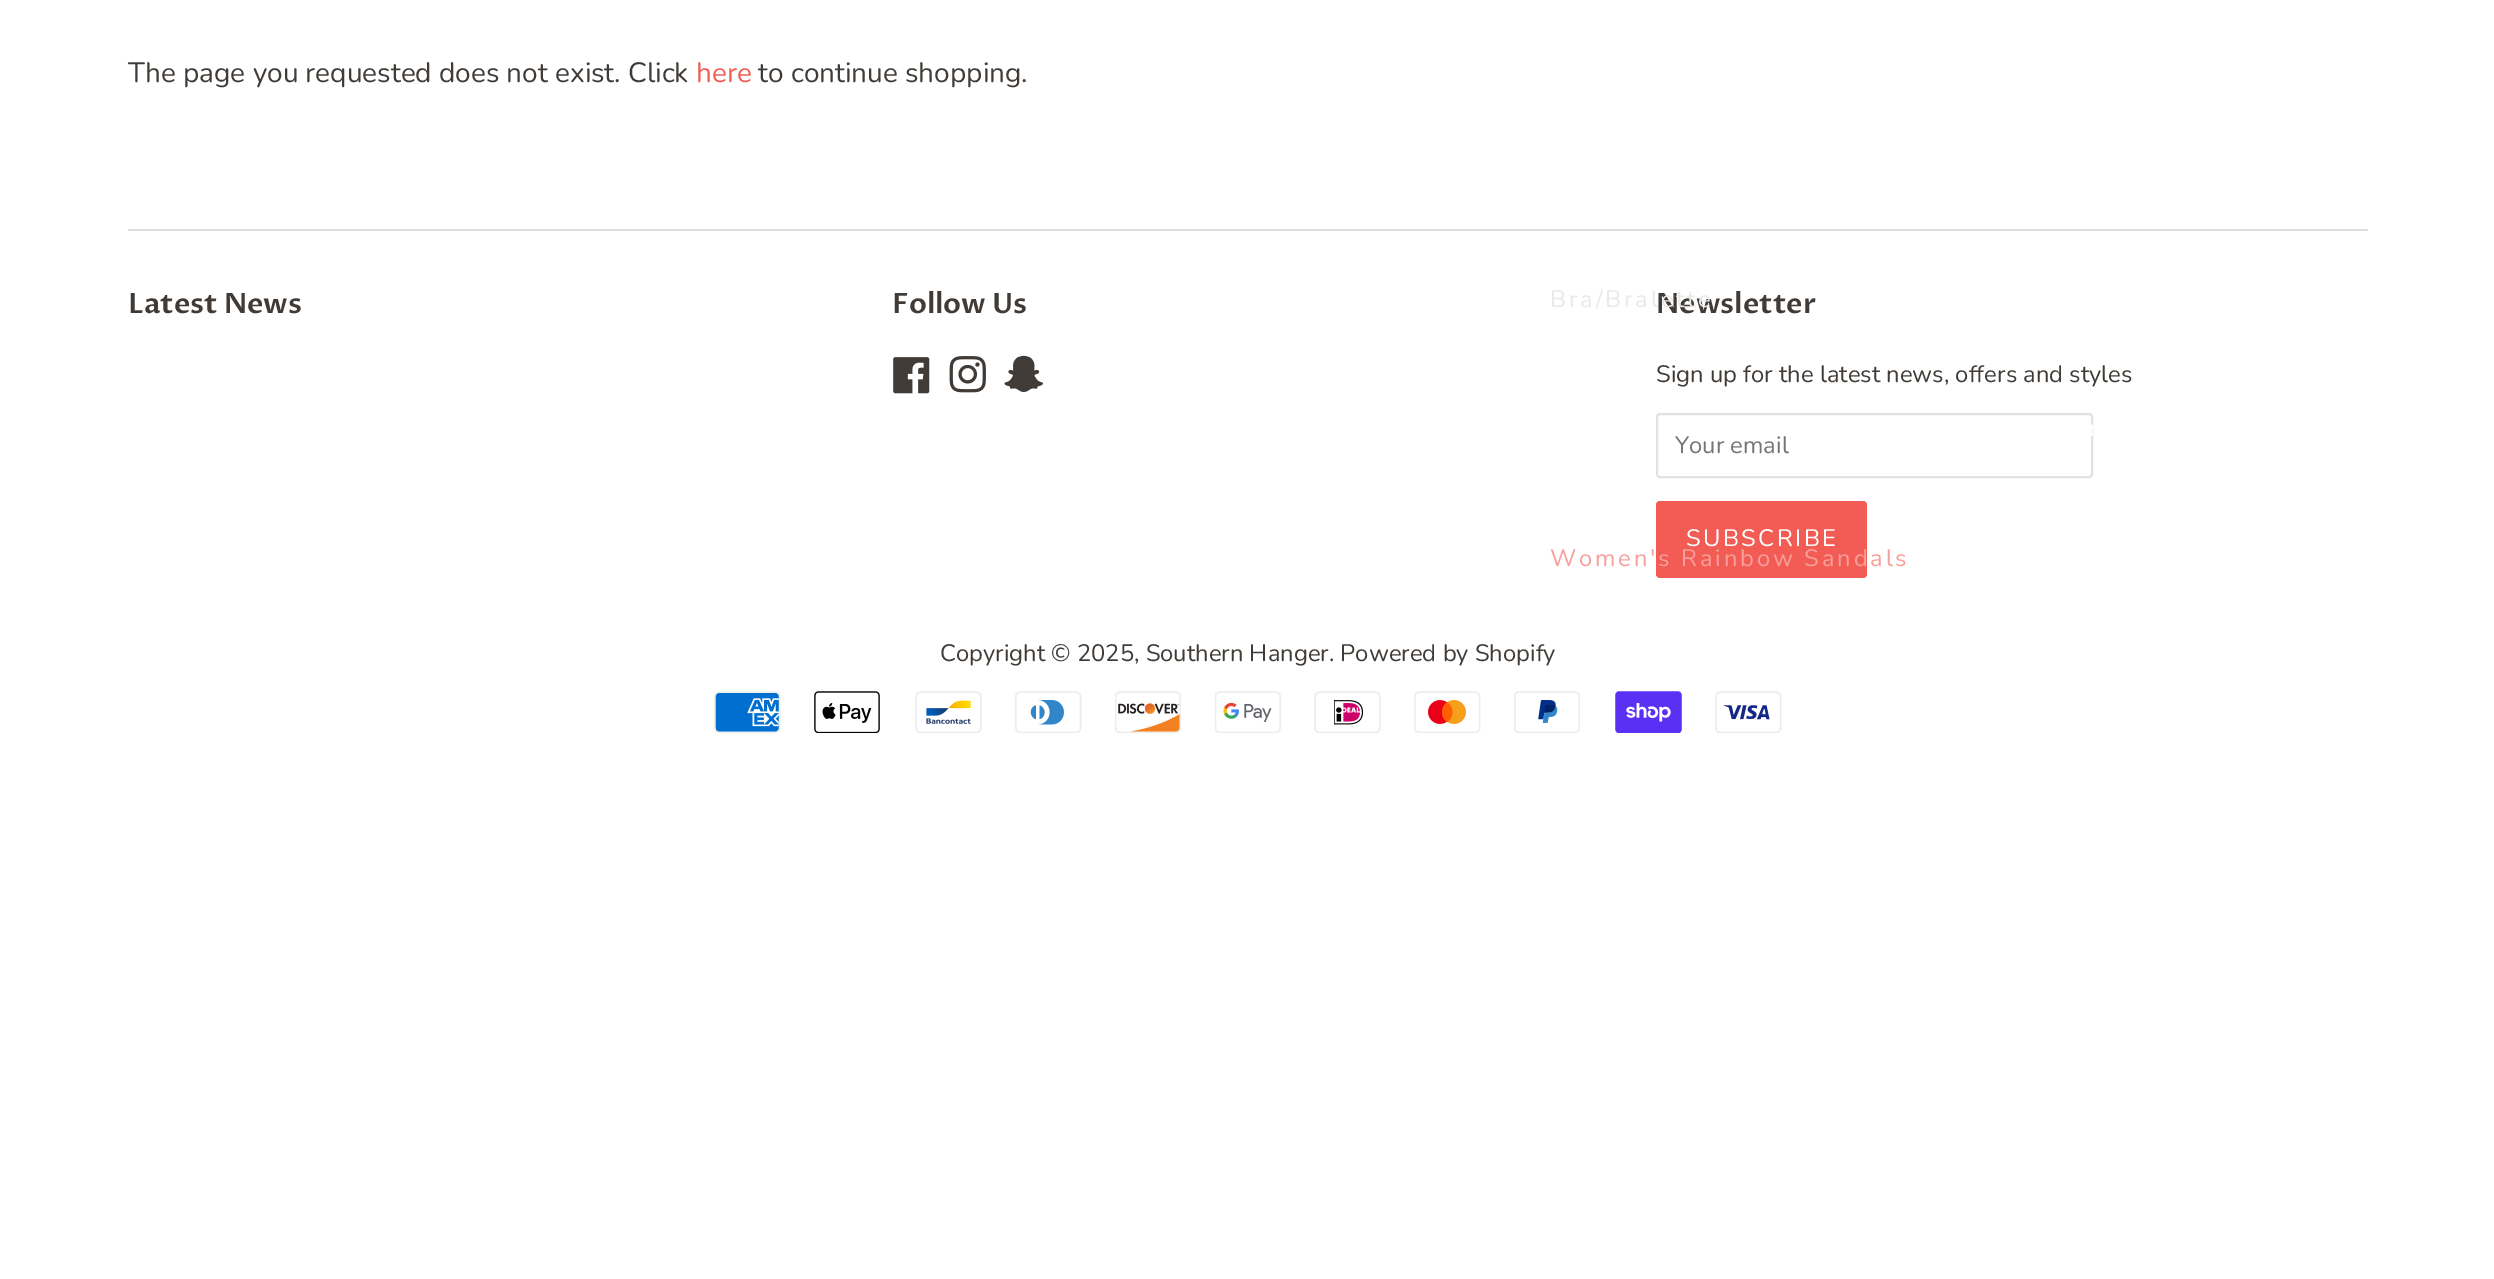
%!PS-Adobe-3.0
%%BoundingBox: 0 0 2494 1279
%%LanguageLevel: 3
%%Pages: 1
%%EndComments
%%BeginProlog
/rrect { 5 dict begin { /r /h /w /y /x } { exch def } forall
  x r add y moveto x w add y 2 copy h add r arct x w add y h add x 1 index r arct
  x y h add x y r arct x y 2 copy exch w add exch r arct closepath end } def
/drawimage { 5 dict begin { /h /w /y /x /name } { exch def } forall
  gsave x y translate w h scale
  w h 8 [w 0 0 h 0 0] name (r) file false 3 colorimage grestore end } def
%%EndProlog
%%BeginSetup
<< /PageSize [2494 1279] >> setpagedevice
%%EndSetup
%%Page: 1 1
0 1279 translate 1 -1 scale
4 setmiterlimit
1 setgray
0 0 2494 1279 rectfill
0.867 setgray
128 229 2240 2 rectfill
(images/1.raw) 893 357 37 37 drawimage
(images/2.raw) 949 356 37 37 drawimage
(images/3.raw) 1004 355 39 37 drawimage
0.886 0.886 0.882 setrgbcolor
2 setlinewidth
1657 414 435 63 3 rrect stroke
0.949 0.361 0.329 setrgbcolor
1656 501 211 77 4 rrect fill
(images/4.raw) 714 691 67 42 drawimage
(images/5.raw) 814 691 66 42 drawimage
(images/6.raw) 915 691 67 42 drawimage
(images/7.raw) 1015 691 67 42 drawimage
(images/8.raw) 1115 691 66 42 drawimage
(images/9.raw) 1215 691 66 42 drawimage
(images/10.raw) 1314 691 67 42 drawimage
(images/11.raw) 1414 691 67 42 drawimage
(images/12.raw) 1514 691 66 42 drawimage
(images/13.raw) 1615 691 67 42 drawimage
(images/14.raw) 1715 691 67 42 drawimage
/Nunito-Regular [28 0 0 -28 0 0] selectfont
0.251 0.231 0.216 setrgbcolor
128 82 moveto (The page you requested does not exist. Click) show
0.949 0.361 0.329 setrgbcolor
696 82 moveto (here) show
0.251 0.231 0.216 setrgbcolor
758 82 moveto (to continue shopping.) show
/Nunito-Regular [23.8 0 0 -23.8 0 0] selectfont
0.969 0.624 0.608 setrgbcolor
1550 566 moveto 2.8 0 (Women's Rainbow Sandals) ashow
1 setgray
2089 436 moveto 2.8 0 (r) ashow
/ProzaLibre-SemiBold [28 0 0 -28 0 0] selectfont
0.251 0.231 0.216 setrgbcolor
128 313 moveto (Latest News) show
892 313 moveto (Follow Us) show
1656 313 moveto (Newsletter) show
/Nunito-Regular [23.8 0 0 -23.8 0 0] selectfont
0.918 0.914 0.914 setrgbcolor
1550 307 moveto 2.8 0 (Bra/Bralette) ashow
0.251 0.231 0.216 setrgbcolor
1656 382 moveto (Sign up for the latest news, offers and styles) show
0.459 setgray
1675 453 moveto (Your email) show
1 setgray
1686 546 moveto 2.4 0 (SUBSCRIBE) ashow
0.251 0.231 0.216 setrgbcolor
940 661 moveto (Copyright © 2025, Southern Hanger. Powered by Shopify) show
showpage
%%EOF
